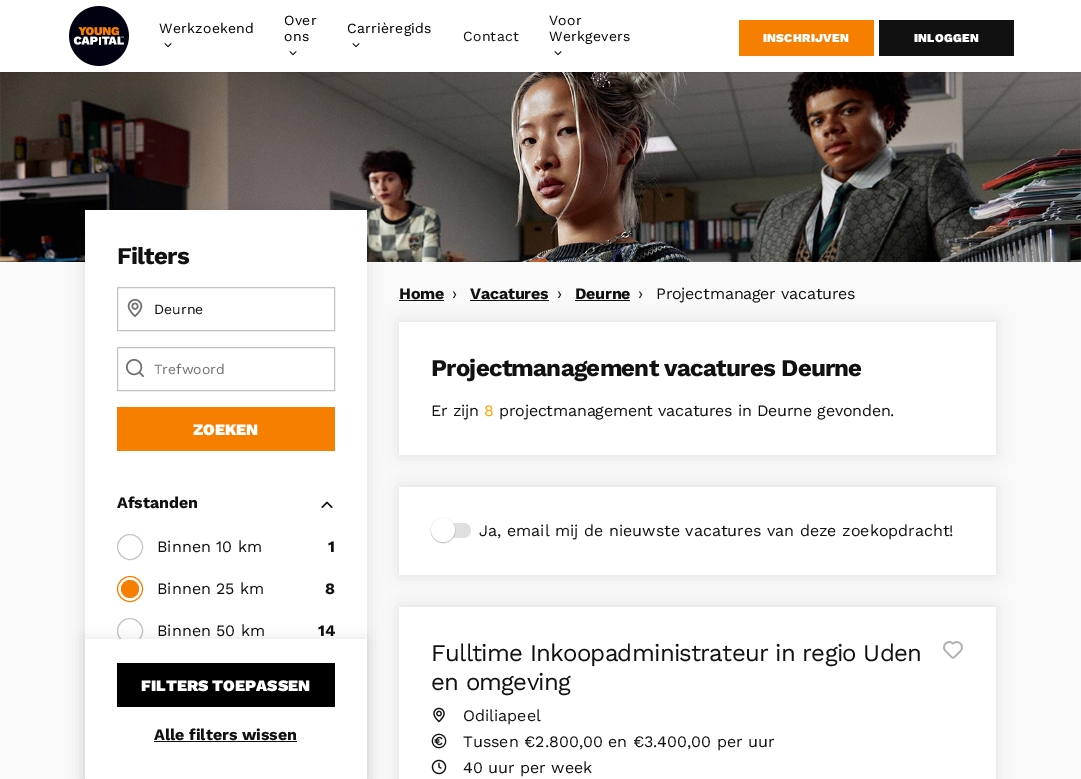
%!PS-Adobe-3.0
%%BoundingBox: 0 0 1081 779
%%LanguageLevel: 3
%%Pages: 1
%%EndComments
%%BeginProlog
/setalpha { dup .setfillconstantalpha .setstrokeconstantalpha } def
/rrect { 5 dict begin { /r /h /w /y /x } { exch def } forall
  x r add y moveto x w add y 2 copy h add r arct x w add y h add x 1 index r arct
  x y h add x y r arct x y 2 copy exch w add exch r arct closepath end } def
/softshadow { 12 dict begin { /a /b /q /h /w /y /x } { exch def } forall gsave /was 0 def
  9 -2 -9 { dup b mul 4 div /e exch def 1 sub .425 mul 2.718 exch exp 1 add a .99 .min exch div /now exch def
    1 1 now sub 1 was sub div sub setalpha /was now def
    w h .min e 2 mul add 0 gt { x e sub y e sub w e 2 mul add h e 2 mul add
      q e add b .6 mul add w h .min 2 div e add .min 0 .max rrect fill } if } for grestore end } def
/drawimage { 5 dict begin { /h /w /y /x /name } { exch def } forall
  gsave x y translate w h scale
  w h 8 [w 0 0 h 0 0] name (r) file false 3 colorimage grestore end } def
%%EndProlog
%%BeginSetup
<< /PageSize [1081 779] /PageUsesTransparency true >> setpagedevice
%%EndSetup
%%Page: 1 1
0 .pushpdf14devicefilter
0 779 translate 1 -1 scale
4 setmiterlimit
0.976 setgray
0 0 1081 779 rectfill
(images/3.raw) 0 72 1081 190 drawimage
0 setgray
0 1 1081 72 0 1 0.1 softshadow
1 setgray
0 0 1081 72 rectfill
(images/1.raw) 69 6 60 60 drawimage
(images/2.raw) 164 43 8 5 drawimage
(images/2.raw) 289 51 8 5 drawimage
(images/2.raw) 352 43 8 5 drawimage
(images/2.raw) 554 51 8 5 drawimage
0.969 0.498 0 setrgbcolor
739 20 135 36 rectfill
0.067 setgray
879 20 135 36 rectfill
0 setgray
85 210 282 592 0 7.5 0.1 softshadow
1 setgray
85 210 282 429 rectfill
0.765 setgray
117.5 287.5 217 43 rectstroke
(images/4.raw) 127 298 16 19 drawimage
117.5 347.5 217 43 rectstroke
(images/5.raw) 125 358 19 19 drawimage
0.969 0.498 0 setrgbcolor
117 407 218 44 rectfill
(images/6.raw) 321 501 12 7 drawimage
0.765 setgray
newpath 130 547 12.5 0 360 arc closepath stroke
0.969 0.498 0 setrgbcolor
newpath 130 589 12.5 0 360 arc closepath stroke
newpath 130 589 9 0 360 arc closepath fill
0.765 setgray
newpath 130 631 12.5 0 360 arc closepath stroke
0 setgray
85 639 282 140 0 7.5 0.1 softshadow
1 setgray
85 639 282 140 rectfill
0 setgray
117 663 218 44 rectfill
0.067 setgray
154 741 143 1 rectfill
0 setgray
399 322 597 133 0 7.5 0.1 softshadow
0.067 setgray
399 300 45 1 rectfill
470 300 79 1 rectfill
575 300 55 1 rectfill
1 setgray
399 322 597 133 rectfill
0 setgray
399 487 597 88 0 7.5 0.1 softshadow
1 setgray
399 487 597 88 rectfill
0.878 0.878 0.882 setrgbcolor
431 523 40 15 7.5 rrect fill
0 setgray
431 518 24 24 12 0.5 0.12 softshadow
431 519 24 24 12 0.5 0.24 softshadow
1 setgray
newpath 443 530 12 0 360 arc closepath fill
0 setgray
399 607 597 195 0 7.5 0.1 softshadow
1 setgray
399 607 597 172 rectfill
(images/7.raw) 943 641 20 18 drawimage
(images/8.raw) 433 707 12 16 drawimage
(images/9.raw) 431 733 16 16 drawimage
(images/10.raw) 431 759 16 16 drawimage
/WorkSans-Regular [14 0 0 -14 0 0] selectfont
0 setgray
159 33 moveto 0.25 0 (Werkzoekend) ashow
284 25 moveto 0.25 0 (Over) ashow
284 41 moveto 0.25 0 (ons) ashow
347 33 moveto 0.25 0 (Carrièregids) ashow
0.067 setgray
463 41 moveto 0.25 0 (Contact) ashow
0 setgray
549 25 moveto 0.25 0 (Voor) ashow
549 41 moveto 0.25 0 (Werkgevers) ashow
/WorkSans-Black [12 0 0 -12 0 0] selectfont
1 setgray
763 42 moveto 0.25 0 (INSCHRIJVEN) ashow
914 42 moveto 0.25 0 (INLOGGEN) ashow
/WorkSans-Bold [24 0 0 -24 0 0] selectfont
0.067 setgray
117 264 moveto -0.75 0 (Filters) ashow
/WorkSans-Regular [14 0 0 -14 0 0] selectfont
154 314 moveto (Deurne) show
0.443 setgray
154 374 moveto (Trefwoord) show
/WorkSans-Black [16 0 0 -16 0 0] selectfont
1 setgray
193 435 moveto (ZOEKEN) show
/WorkSans-Bold [16 0 0 -16 0 0] selectfont
0.067 setgray
117 508 moveto (Afstanden) show
/WorkSans-Regular [16 0 0 -16 0 0] selectfont
157 552 moveto (Binnen 10 km) show
/WorkSans-Bold [16 0 0 -16 0 0] selectfont
328 552 moveto (1) show
/WorkSans-Regular [16 0 0 -16 0 0] selectfont
157 594 moveto (Binnen 25 km) show
/WorkSans-Bold [16 0 0 -16 0 0] selectfont
325 594 moveto (8) show
/WorkSans-Regular [16 0 0 -16 0 0] selectfont
157 636 moveto (Binnen 50 km) show
/WorkSans-Bold [16 0 0 -16 0 0] selectfont
318 636 moveto (14) show
/WorkSans-Black [16 0 0 -16 0 0] selectfont
1 setgray
141 691 moveto (FILTERS TOEPASSEN) show
/WorkSans-Bold [16 0 0 -16 0 0] selectfont
0.067 setgray
154 740 moveto (Alle filters wissen) show
399 299 moveto -0.2 0 (Home) ashow
/WorkSans-Regular [16 0 0 -16 0 0] selectfont
452 299 moveto -0.2 0 (›) ashow
/WorkSans-Bold [16 0 0 -16 0 0] selectfont
470 299 moveto -0.2 0 (Vacatures) ashow
/WorkSans-Regular [16 0 0 -16 0 0] selectfont
557 299 moveto -0.2 0 (›) ashow
/WorkSans-Bold [16 0 0 -16 0 0] selectfont
575 299 moveto -0.2 0 (Deurne) ashow
/WorkSans-Regular [16 0 0 -16 0 0] selectfont
638 299 moveto -0.2 0 (›) ashow
656 299 moveto -0.2 0 (Projectmanager vacatures) ashow
/WorkSans-Bold [24 0 0 -24 0 0] selectfont
431 376 moveto -0.75 0 (Projectmanagement vacatures Deurne) ashow
/WorkSans-Regular [16 0 0 -16 0 0] selectfont
431 416 moveto -0.2 0 (Er zijn) ashow
1 0.647 0 setrgbcolor
484 416 moveto -0.2 0 (8) ashow
0.067 setgray
499 416 moveto -0.2 0 (projectmanagement vacatures in Deurne gevonden.) ashow
479 536 moveto (Ja, email mij de nieuwste vacatures van deze zoekopdracht!) show
/WorkSans-Regular [24 0 0 -24 0 0] selectfont
431 661 moveto -0.75 0 (Fulltime Inkoopadministrateur in regio Uden) ashow
431 690 moveto -0.75 0 (en omgeving) ashow
/WorkSans-Regular [16 0 0 -16 0 0] selectfont
463 721 moveto (Odiliapeel) show
463 747 moveto (Tussen €2.800,00 en €3.400,00 per uur) show
463 773 moveto (40 uur per week) show
.poppdf14devicefilter showpage
%%EOF
